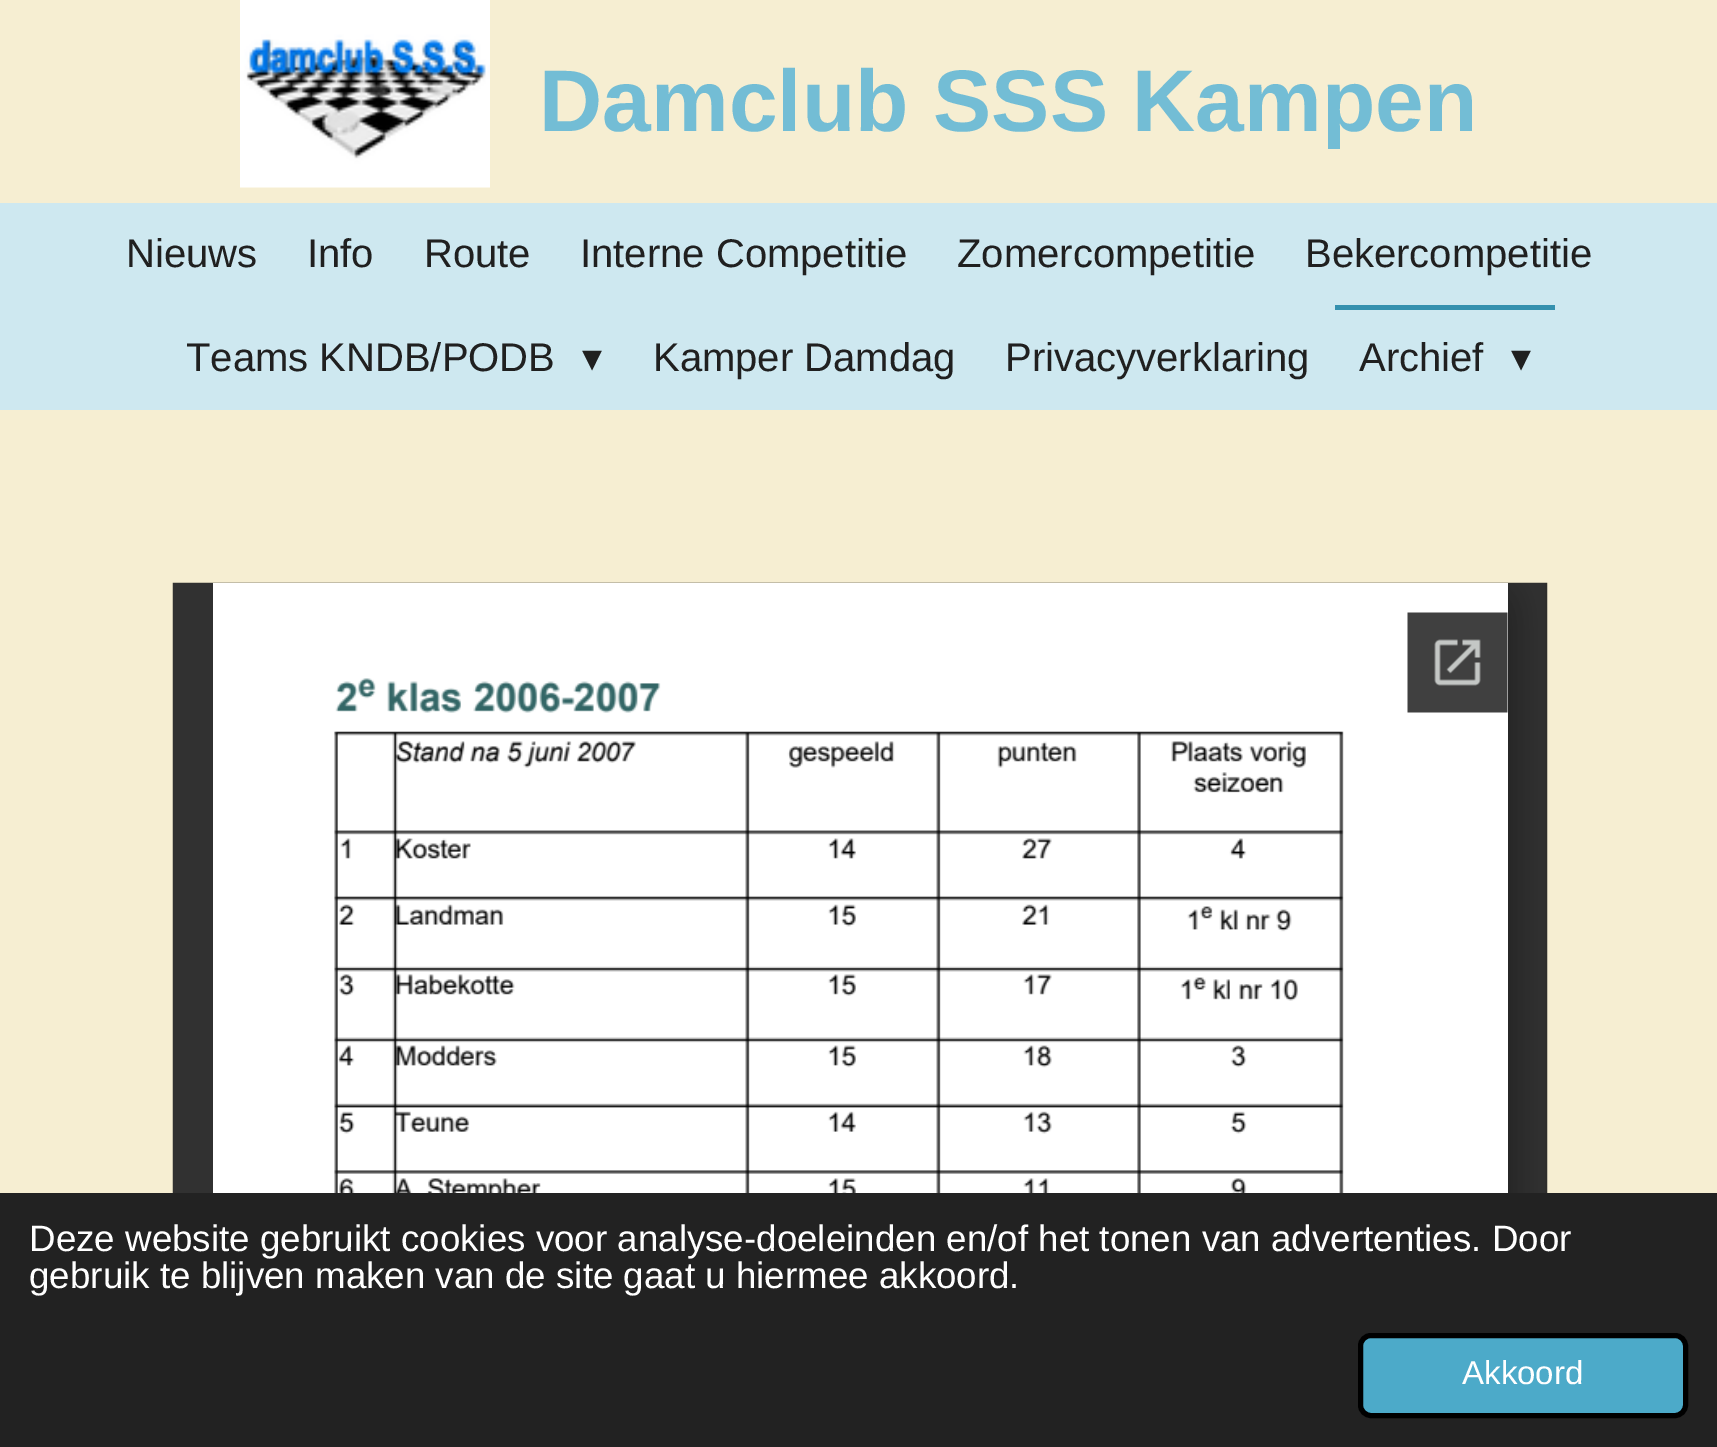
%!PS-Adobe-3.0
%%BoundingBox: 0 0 1717 1447
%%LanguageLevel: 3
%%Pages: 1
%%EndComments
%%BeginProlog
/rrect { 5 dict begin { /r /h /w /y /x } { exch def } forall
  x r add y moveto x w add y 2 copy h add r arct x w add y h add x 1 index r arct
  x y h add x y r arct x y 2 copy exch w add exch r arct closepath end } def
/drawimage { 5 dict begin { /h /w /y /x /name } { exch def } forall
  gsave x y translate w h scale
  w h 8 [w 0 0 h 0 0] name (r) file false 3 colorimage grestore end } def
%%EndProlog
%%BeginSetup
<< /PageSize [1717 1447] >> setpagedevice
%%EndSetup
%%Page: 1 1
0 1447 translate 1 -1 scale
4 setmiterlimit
0.965 0.933 0.824 setrgbcolor
0 0 1717 1447 rectfill
(images/1.raw) 240 0 250 188 drawimage
0.808 0.91 0.941 setrgbcolor
0 203 1717 207 rectfill
0.204 0.565 0.682 setrgbcolor
1335 305 220 5 rectfill
(images/2.raw) 172 582 1376 611 drawimage
0.133 setgray
0 1193 1717 254 rectfill
0.298 0.667 0.788 setrgbcolor
1360.5 1335.5 325 80 10.5 rrect gsave fill grestore
0 setgray
5 setlinewidth
stroke
/LiberationSans-Bold [87.5 0 0 -87.5 0 0] selectfont
0.451 0.741 0.835 setrgbcolor
539 131 moveto (Damclub SSS Kampen) show
/LiberationSans-Regular [40 0 0 -40 0 0] selectfont
0.125 setgray
126 267 moveto (Nieuws) show
307 267 moveto (Info) show
424 267 moveto (Route) show
580 267 moveto (Interne Competitie) show
957 267 moveto (Zomercompetitie) show
1305 267 moveto (Bekercompetitie) show
186 371 moveto (Teams KNDB/PODB) show
/DejaVuSans-Regular [40 0 0 -40 0 0] selectfont
582 371 moveto (▾) show
/LiberationSans-Regular [40 0 0 -40 0 0] selectfont
653 371 moveto (Kamper Damdag) show
1005 371 moveto (Privacyverklaring) show
1359 371 moveto (Archief) show
/DejaVuSans-Regular [40 0 0 -40 0 0] selectfont
1511 371 moveto (▾) show
/LiberationSans-Regular [36.75 0 0 -36.75 0 0] selectfont
1 setgray
29 1251 moveto (Deze website gebruikt cookies voor analyse-doeleinden en/of het tonen van advertenties. Door) show
29 1288 moveto (gebruik te blijven maken van de site gaat u hiermee akkoord.) show
/LiberationSans-Regular [33 0 0 -33 0 0] selectfont
1462 1384 moveto (Akkoord) show
showpage
%%EOF
